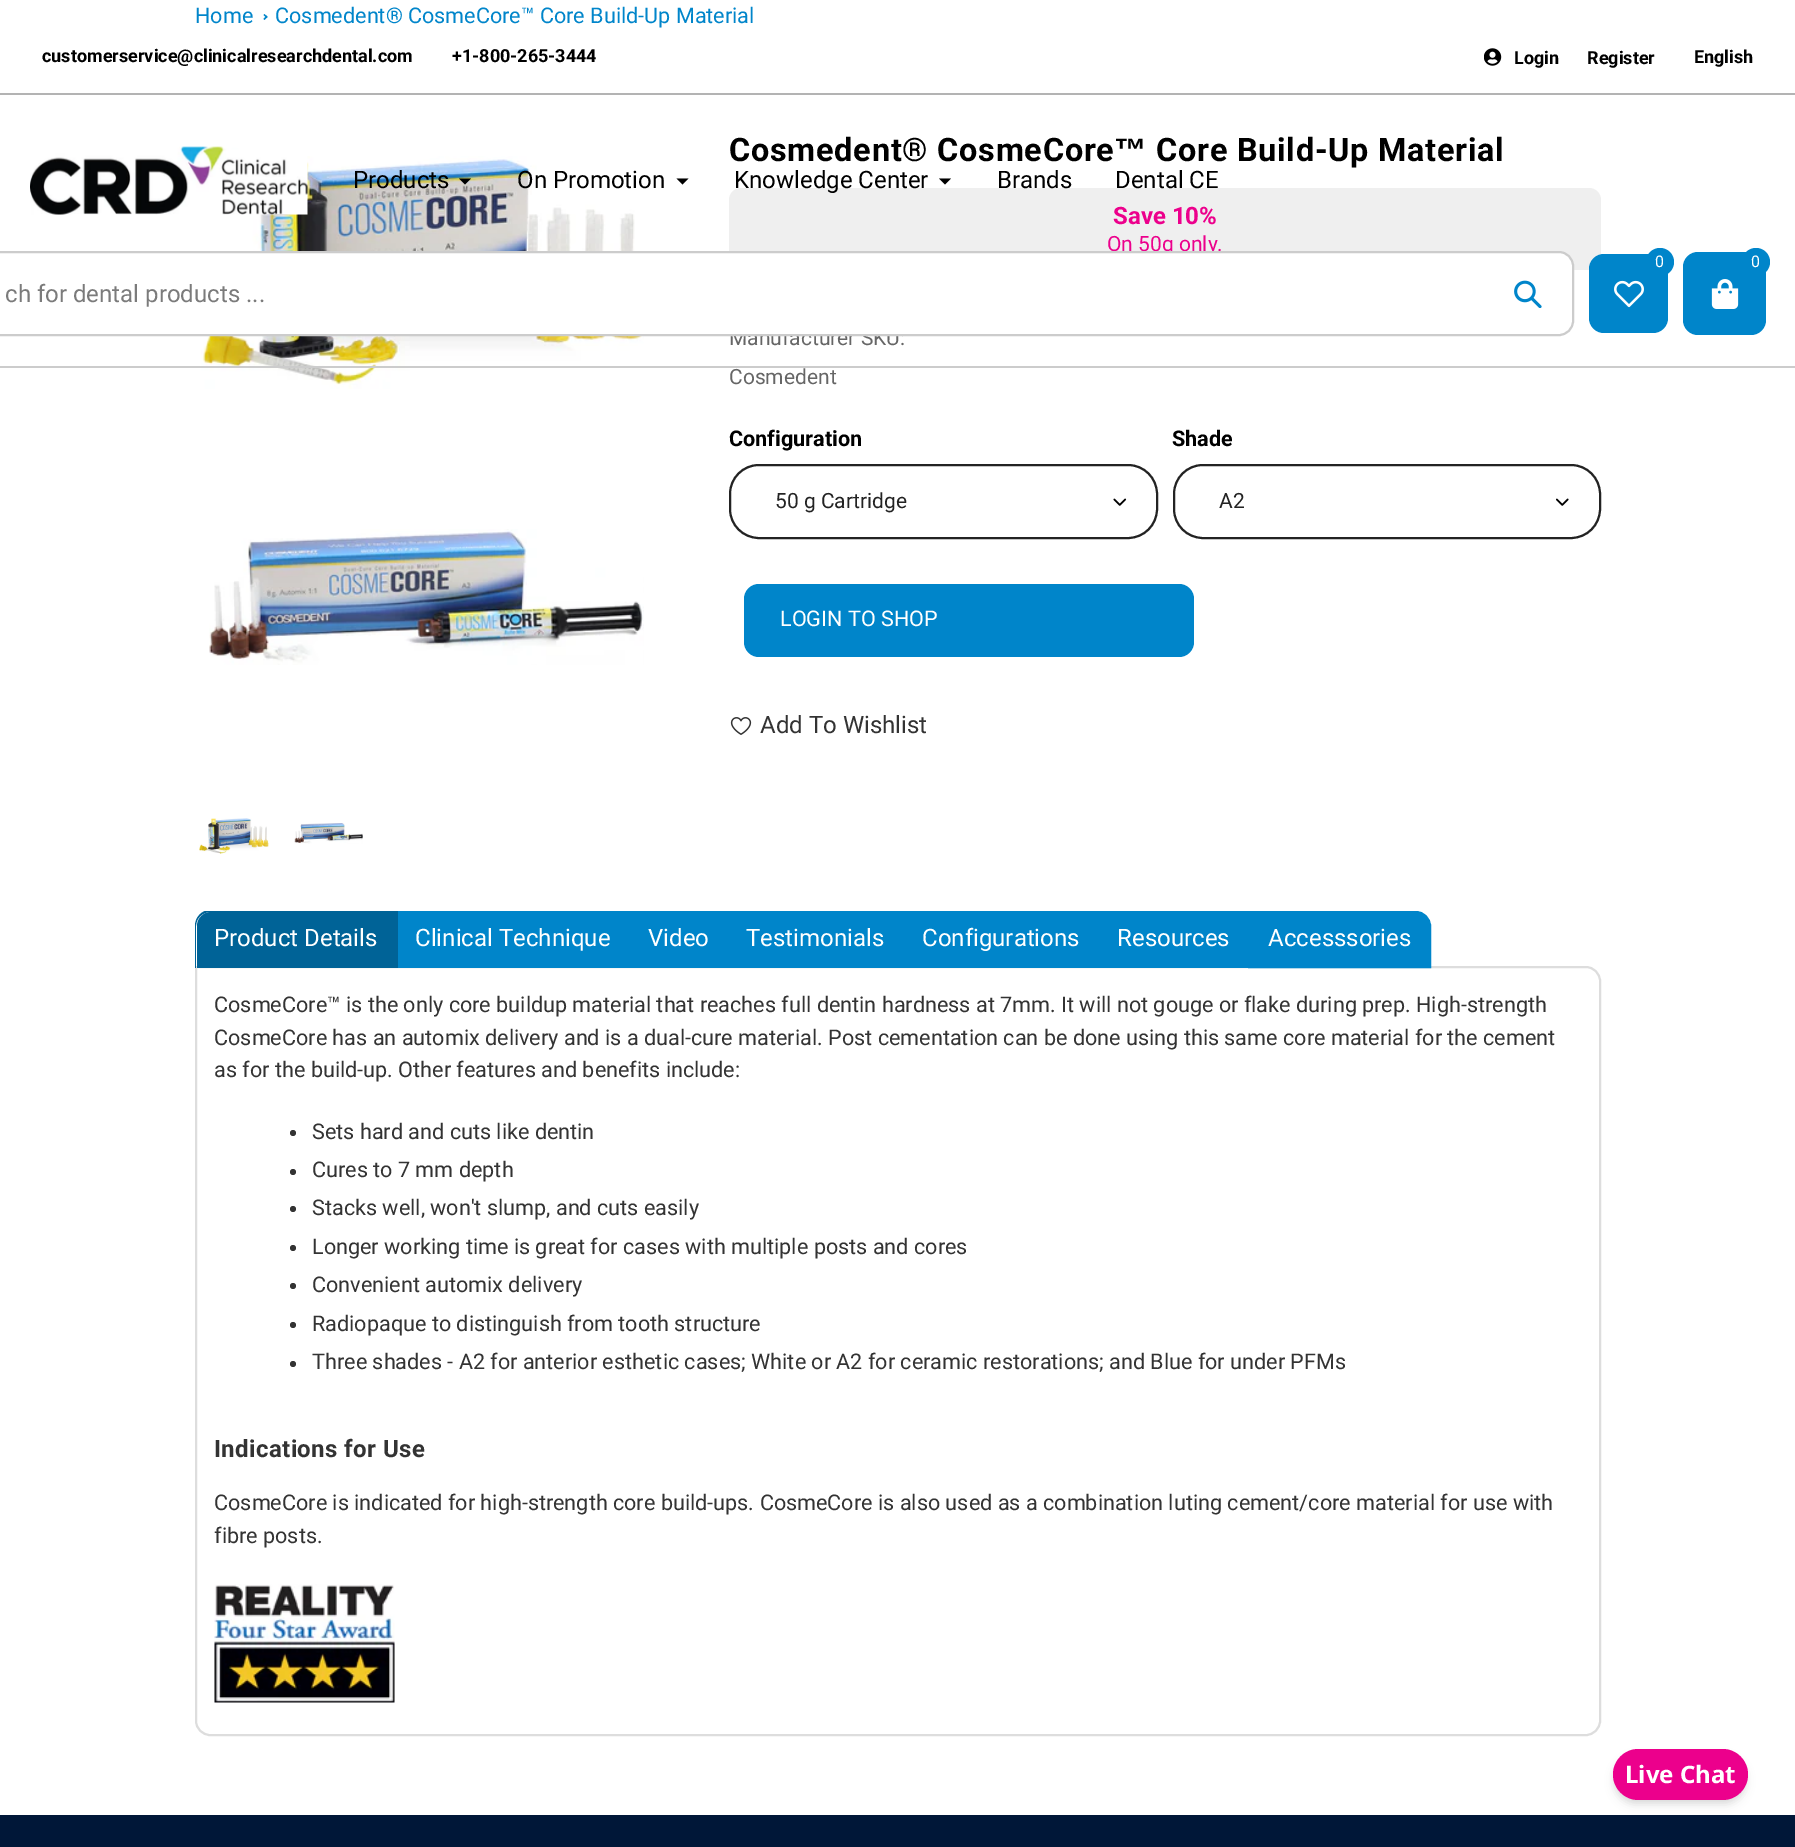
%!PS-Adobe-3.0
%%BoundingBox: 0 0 1795 1847
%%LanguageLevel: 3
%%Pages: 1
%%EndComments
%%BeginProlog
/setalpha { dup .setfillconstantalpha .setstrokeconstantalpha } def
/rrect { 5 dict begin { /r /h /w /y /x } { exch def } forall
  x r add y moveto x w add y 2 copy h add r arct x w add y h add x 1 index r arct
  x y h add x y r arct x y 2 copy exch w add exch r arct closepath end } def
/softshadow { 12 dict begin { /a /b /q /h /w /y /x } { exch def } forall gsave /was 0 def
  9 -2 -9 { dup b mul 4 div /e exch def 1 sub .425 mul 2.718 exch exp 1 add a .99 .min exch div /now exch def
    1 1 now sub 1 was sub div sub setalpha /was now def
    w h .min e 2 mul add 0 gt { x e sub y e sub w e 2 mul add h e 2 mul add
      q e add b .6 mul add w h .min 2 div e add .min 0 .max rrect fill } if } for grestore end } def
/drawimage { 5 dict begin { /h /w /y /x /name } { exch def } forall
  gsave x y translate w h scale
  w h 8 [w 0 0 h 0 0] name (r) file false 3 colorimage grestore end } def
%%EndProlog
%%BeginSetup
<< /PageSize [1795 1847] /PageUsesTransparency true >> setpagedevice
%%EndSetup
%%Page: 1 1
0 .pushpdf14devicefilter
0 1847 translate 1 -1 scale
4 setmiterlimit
1 setgray
0 0 1795 1847 rectfill
0 0.522 0.792 setrgbcolor
newpath 264.5 14 moveto 267.5 17 lineto 266.5 18 lineto 263.5 15 lineto closepath fill
newpath 266.5 15.5 moveto 267.5 17 lineto 264.5 20 lineto 263.5 19 lineto closepath fill
(images/1.raw) 201 156 443 233 drawimage
(images/2.raw) 209 529 435 136 drawimage
(images/3.raw) 199 818 70 36 drawimage
(images/4.raw) 294 823 69 21 drawimage
0.937 setgray
729 188 872 82 12 rrect fill
(images/5.raw) 1113 498 14 8 drawimage
0.137 setgray
2 setlinewidth
730 465 427 73 29 rrect stroke
(images/6.raw) 1556 498 13 8 drawimage
1174 465 426 73 29 rrect stroke
0 0.522 0.792 setrgbcolor
744 584 450 73 15 rrect fill
(images/7.raw) 730 717 22 18 drawimage
0.867 setgray
newpath 196 967 moveto 1586 967 lineto 1593.5 967 1600 973.5 1600 981 curveto 1600 1721 lineto 1600 1728.5 1593.5 1735 1586 1735 curveto 210 1735 lineto 202.5 1735 196 1728.5 196 1721 curveto closepath stroke
0 0.388 0.592 setrgbcolor
newpath 211 912 moveto 396 912 lineto 396 968 lineto 197 968 lineto 197 926 lineto 197 918.5 203.5 912 211 912 curveto closepath fill
gsave
195 911 1406 57 rectclip
newpath 210 910 moveto 398 910 lineto 398 968 lineto 195 968 lineto 195 926 lineto 195 917 202 910 210 910 curveto closepath 210 912 moveto 396 912 lineto 396 968 lineto 196 968 lineto 196 926 lineto 196 918 203 912 210 912 curveto closepath eofill
grestore
0 0.522 0.792 setrgbcolor
398 911 231 57 rectfill
631 913 97 53 rectfill
629 911 619 2 rectfill
629 966 619 2 rectfill
629 911 2 57 rectfill
730 913 173 53 rectfill
728 911 2 57 rectfill
905 913 193 53 rectfill
903 911 2 57 rectfill
1100 913 148 53 rectfill
1098 911 2 57 rectfill
newpath 1249 912 moveto 1416 912 lineto 1423.5 912 1430 918.5 1430 926 curveto 1430 967 lineto 1249 967 lineto closepath gsave fill grestore
stroke
0.2 setgray
newpath 293 1133 3 0 360 arc closepath fill
newpath 293 1172 3 0 360 arc closepath fill
newpath 293 1209 3 0 360 arc closepath fill
newpath 293 1248 3 0 360 arc closepath fill
newpath 293 1286 3 0 360 arc closepath fill
newpath 293 1325 3 0 360 arc closepath fill
newpath 293 1364 3 0 360 arc closepath fill
(images/8.raw) 214 1584 181 119 drawimage
0 0.09 0.22 setrgbcolor
0 1815 1795 32 rectfill
0.8 setgray
0 366 1795 2 rectfill
0.702 setgray
0 93 1795 2 rectfill
(images/9.raw) 1484 48 18 18 drawimage
(images/10.raw) 30 146 278 69 drawimage
0 setgray
newpath 471 178.5 moveto 465 184.5 lineto 459 178.5 lineto fill
newpath 688.5 178.5 moveto 682.5 184.5 lineto 676.5 178.5 lineto fill
newpath 951 178.5 moveto 945 184.5 lineto 939 178.5 lineto fill
0 0.522 0.792 setrgbcolor
1589 254 79 79 15 rrect fill
newpath 1660 262 14 0 360 arc closepath fill
(images/11.raw) 1614 280 30 28 drawimage
1683 252 83 83 15 rrect fill
newpath 1756 262 14 0 360 arc closepath fill
(images/12.raw) 1711 279 28 30 drawimage
0 setgray
1614 1754 132 48 24 3 0.06 softshadow
1614 1757 132 48 24 4.5 0.1 softshadow
0.925 0 0.549 setrgbcolor
1613 1749 135 51 25.5 rrect fill
/Roboto-Regular [21.6 0 0 -21.6 0 0] selectfont
0 0.522 0.792 setrgbcolor
195 23 moveto (Home) show
275 23 moveto (Cosmedent® CosmeCore™ Core Build-Up Material) show
/Roboto-Bold [32.4 0 0 -32.4 0 0] selectfont
0 setgray
729 161 moveto 0.75 0 (Cosmedent® CosmeCore) ashow
/LiberationSans-Bold [32.4 0 0 -32.4 0 0] selectfont
1114 161 moveto 0.75 0 (™) ashow
/Roboto-Bold [32.4 0 0 -32.4 0 0] selectfont
1156 161 moveto 0.75 0 (Core Build-Up Material) ashow
/Roboto-Bold [24 0 0 -24 0 0] selectfont
0.925 0 0.549 setrgbcolor
1113 224 moveto (Save 10%) show
/Roboto-Regular [21 0 0 -21 0 0] selectfont
1107 251 moveto (On 50g only.) show
0.4 setgray
729 345 moveto (Manufacturer SKU:) show
729 384 moveto (Cosmedent) show
/Roboto-Bold [21.6 0 0 -21.6 0 0] selectfont
0 setgray
729 446 moveto (Configuration) show
/Roboto-Regular [21 0 0 -21 0 0] selectfont
0.137 setgray
775 508 moveto (50 g Cartridge) show
/Roboto-Bold [21.6 0 0 -21.6 0 0] selectfont
0 setgray
1172 446 moveto (Shade) show
/Roboto-Regular [21 0 0 -21 0 0] selectfont
0.137 setgray
1219 508 moveto (A2) show
/Roboto-Regular [21.6 0 0 -21.6 0 0] selectfont
1 setgray
780 626 moveto (LOGIN TO SHOP) show
/Roboto-Regular [24 0 0 -24 0 0] selectfont
0.2 setgray
760 733 moveto (Add To Wishlist) show
1 setgray
214 946 moveto (Product Details) show
415 946 moveto (Clinical Technique) show
648 946 moveto (Video) show
746 946 moveto (Testimonials) show
922 946 moveto (Configurations) show
1117 946 moveto (Resources) show
1268 946 moveto (Accesssories) show
/Roboto-Regular [21.6 0 0 -21.6 0 0] selectfont
0.2 setgray
214 1012 moveto (CosmeCore™ is the only core buildup material that reaches full dentin hardness at 7mm. It will not gouge or flake during prep. High-strength) show
214 1045 moveto (CosmeCore has an automix delivery and is a dual-cure material. Post cementation can be done using this same core material for the cement) show
214 1077 moveto (as for the build-up. Other features and benefits include:) show
312 1139 moveto (Sets hard and cuts like dentin) show
312 1177 moveto (Cures to 7 mm depth) show
312 1215 moveto (Stacks well, won't slump, and cuts easily) show
312 1254 moveto (Longer working time is great for cases with multiple posts and cores) show
312 1292 moveto (Convenient automix delivery) show
312 1331 moveto (Radiopaque to distinguish from tooth structure) show
312 1369 moveto (Three shades - A2 for anterior esthetic cases; White or A2 for ceramic restorations; and Blue for under PFMs) show
/Roboto-Bold [24 0 0 -24 0 0] selectfont
214 1457 moveto 0.4 0 (Indications for Use) ashow
/Roboto-Regular [21.6 0 0 -21.6 0 0] selectfont
214 1510 moveto (CosmeCore is indicated for high-strength core build-ups. CosmeCore is also used as a combination luting cement/core material for use with) show
214 1543 moveto (fibre posts.) show
/Roboto-Bold [18 0 0 -18 0 0] selectfont
0 setgray
42 62 moveto (customerservice@clinicalresearchdental.com) show
452 62 moveto (+1-800-265-3444) show
1514 64 moveto (Login) show
1587 64 moveto (Register) show
1694 63 moveto (English) show
/Roboto-Regular [24 0 0 -24 0 0] selectfont
353 188 moveto (Products) show
517 188 moveto (On Promotion) show
734 188 moveto (Knowledge Center) show
997 188 moveto (Brands) show
1115 188 moveto (Dental CE) show
/Roboto-Regular [16 0 0 -16 0 0] selectfont
1 setgray
1655 267 moveto (0) show
1751 267 moveto (0) show
-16 252 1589 83 14 rrect gsave fill grestore
0.8 setgray
stroke
/Roboto-Regular [24 0 0 -24 0 0] selectfont
0.482 setgray
5 302 moveto (ch for dental products ...) show
(images/13.raw) 1514 280 28 28 drawimage
/NotoSans-Bold [24 0 0 -24 0 0] selectfont
1 setgray
1625 1783 moveto (Live Chat) show
.poppdf14devicefilter showpage
%%EOF
